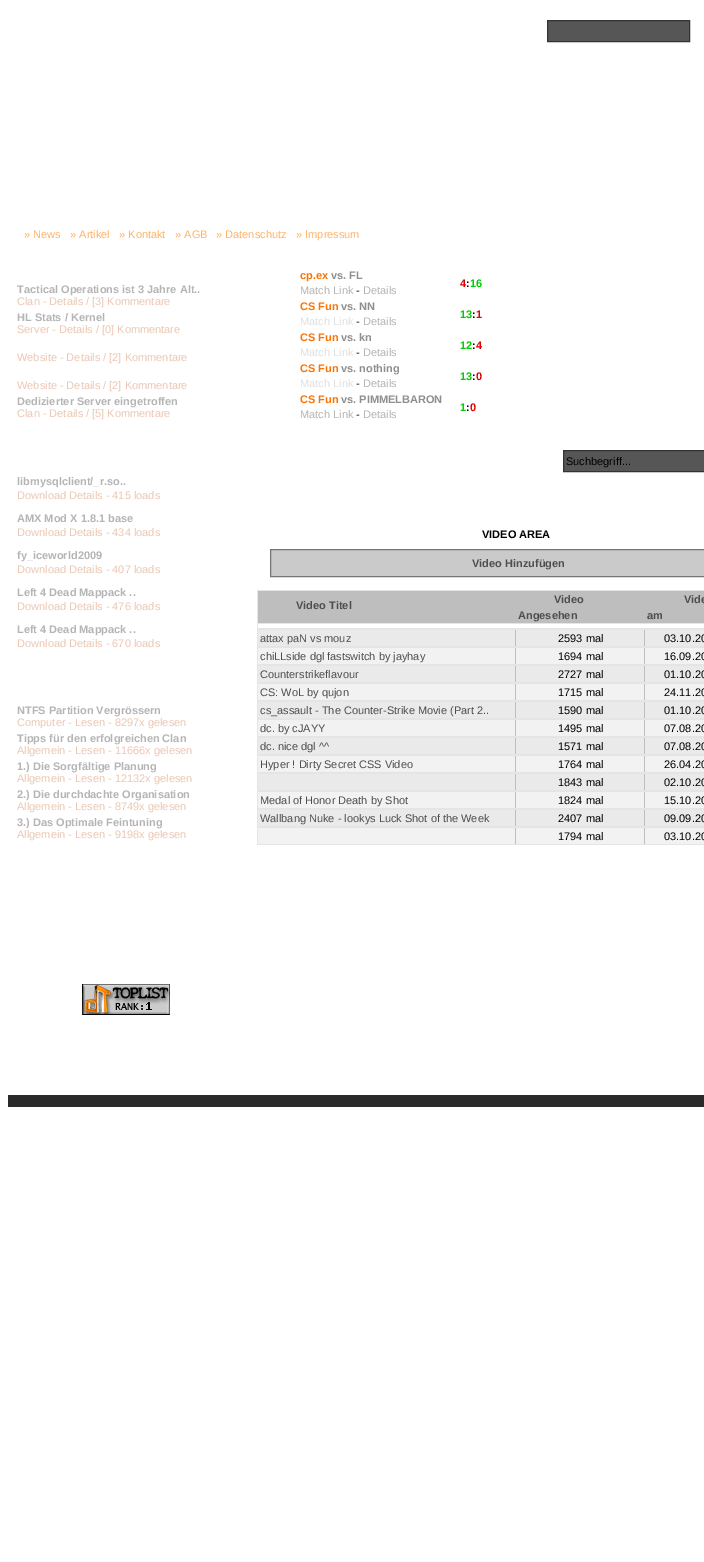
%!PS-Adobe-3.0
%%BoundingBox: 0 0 704 1562
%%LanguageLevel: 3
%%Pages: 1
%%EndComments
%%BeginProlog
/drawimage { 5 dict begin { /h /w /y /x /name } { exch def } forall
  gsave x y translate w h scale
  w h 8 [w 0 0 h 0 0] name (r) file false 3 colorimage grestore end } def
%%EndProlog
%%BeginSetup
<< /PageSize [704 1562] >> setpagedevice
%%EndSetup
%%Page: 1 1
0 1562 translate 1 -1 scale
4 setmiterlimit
1 setgray
0 0 704 1562 rectfill
0.337 setgray
newpath 547.5 20.5 moveto 689.5 20.5 lineto 689.5 41.5 lineto 547.5 41.5 lineto closepath gsave fill grestore
0.2 setgray
stroke
(images/1.raw) 82 984 88 31 drawimage
0.337 setgray
newpath 563.5 450.5 moveto 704.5 450.5 lineto 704.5 471.5 lineto 563.5 471.5 lineto closepath gsave fill grestore
0.2 setgray
stroke
0.792 setgray
newpath 270.5 549.5 moveto 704.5 549.5 lineto 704.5 576.5 lineto 270.5 576.5 lineto closepath gsave fill grestore
0.459 setgray
stroke
0.898 setgray
257 590 447 255 rectfill
0.745 setgray
258 591 446 32 rectfill
1 setgray
258 624 446 4 rectfill
0.745 setgray
515 630 130 16 rectfill
0.918 setgray
258 630 257 16 rectfill
516 630 128 16 rectfill
645 630 59 16 rectfill
0.745 setgray
515 648 130 16 rectfill
0.949 setgray
258 648 257 16 rectfill
516 648 128 16 rectfill
645 648 59 16 rectfill
0.745 setgray
515 666 130 16 rectfill
0.918 setgray
258 666 257 16 rectfill
516 666 128 16 rectfill
645 666 59 16 rectfill
0.745 setgray
515 684 130 16 rectfill
0.949 setgray
258 684 257 16 rectfill
516 684 128 16 rectfill
645 684 59 16 rectfill
0.745 setgray
515 702 130 16 rectfill
0.918 setgray
258 702 257 16 rectfill
516 702 128 16 rectfill
645 702 59 16 rectfill
0.745 setgray
515 720 130 16 rectfill
0.949 setgray
258 720 257 16 rectfill
516 720 128 16 rectfill
645 720 59 16 rectfill
0.745 setgray
515 738 130 16 rectfill
0.918 setgray
258 738 257 16 rectfill
516 738 128 16 rectfill
645 738 59 16 rectfill
0.745 setgray
515 756 130 16 rectfill
0.949 setgray
258 756 257 16 rectfill
516 756 128 16 rectfill
645 756 59 16 rectfill
0.745 setgray
515 774 130 16 rectfill
0.918 setgray
258 774 257 16 rectfill
516 774 128 16 rectfill
645 774 59 16 rectfill
0.745 setgray
515 792 130 16 rectfill
0.949 setgray
258 792 257 16 rectfill
516 792 128 16 rectfill
645 792 59 16 rectfill
0.745 setgray
515 810 130 16 rectfill
0.918 setgray
258 810 257 16 rectfill
516 810 128 16 rectfill
645 810 59 16 rectfill
0.745 setgray
515 828 130 16 rectfill
0.949 setgray
258 828 257 16 rectfill
516 828 128 16 rectfill
645 828 59 16 rectfill
0.165 setgray
8 1095 696 12 rectfill
/LiberationSans-Regular [11 0 0 -11 0 0] selectfont
1 0.702 0.4 setrgbcolor
24 238 moveto (» News) show
70 238 moveto (» Artikel) show
119 238 moveto (» Kontakt) show
175 238 moveto (» AGB) show
216 238 moveto (» Datenschutz) show
296 238 moveto (» Impressum) show
/LiberationSans-Bold [11 0 0 -11 0 0] selectfont
0.71 setgray
17 293 moveto (Tactical Operations ist 3 Jahre Alt..) show
/LiberationSans-Regular [11 0 0 -11 0 0] selectfont
0.925 0.78 0.706 setrgbcolor
17 305 moveto (Clan - Details / [3] Kommentare) show
/LiberationSans-Bold [11 0 0 -11 0 0] selectfont
0.71 setgray
17 321 moveto (HL Stats / Kernel) show
/LiberationSans-Regular [11 0 0 -11 0 0] selectfont
0.925 0.78 0.706 setrgbcolor
17 333 moveto (Server - Details / [0] Kommentare) show
17 361 moveto (Website - Details / [2] Kommentare) show
17 389 moveto (Website - Details / [2] Kommentare) show
/LiberationSans-Bold [11 0 0 -11 0 0] selectfont
0.71 setgray
17 405 moveto (Dedizierter Server eingetroffen) show
/LiberationSans-Regular [11 0 0 -11 0 0] selectfont
0.925 0.78 0.706 setrgbcolor
17 417 moveto (Clan - Details / [5] Kommentare) show
/LiberationSans-Bold [11 0 0 -11 0 0] selectfont
0.71 setgray
17 485 moveto (libmysqlclient/_r.so..) show
/LiberationSans-Regular [11 0 0 -11 0 0] selectfont
0.925 0.78 0.706 setrgbcolor
17 499 moveto (Download Details - 415 loads) show
/LiberationSans-Bold [11 0 0 -11 0 0] selectfont
0.71 setgray
17 522 moveto (AMX Mod X 1.8.1 base) show
/LiberationSans-Regular [11 0 0 -11 0 0] selectfont
0.925 0.78 0.706 setrgbcolor
17 536 moveto (Download Details - 434 loads) show
/LiberationSans-Bold [11 0 0 -11 0 0] selectfont
0.71 setgray
17 559 moveto (fy_iceworld2009) show
/LiberationSans-Regular [11 0 0 -11 0 0] selectfont
0.925 0.78 0.706 setrgbcolor
17 573 moveto (Download Details - 407 loads) show
/LiberationSans-Bold [11 0 0 -11 0 0] selectfont
0.71 setgray
17 596 moveto (Left 4 Dead Mappack ..) show
/LiberationSans-Regular [11 0 0 -11 0 0] selectfont
0.925 0.78 0.706 setrgbcolor
17 610 moveto (Download Details - 476 loads) show
/LiberationSans-Bold [11 0 0 -11 0 0] selectfont
0.71 setgray
17 633 moveto (Left 4 Dead Mappack ..) show
/LiberationSans-Regular [11 0 0 -11 0 0] selectfont
0.925 0.78 0.706 setrgbcolor
17 647 moveto (Download Details - 670 loads) show
/LiberationSans-Bold [11 0 0 -11 0 0] selectfont
0.71 setgray
17 714 moveto (NTFS Partition Vergrössern) show
/LiberationSans-Regular [11 0 0 -11 0 0] selectfont
0.925 0.78 0.706 setrgbcolor
17 726 moveto (Computer - Lesen - 8297x gelesen) show
/LiberationSans-Bold [11 0 0 -11 0 0] selectfont
0.71 setgray
17 742 moveto (Tipps für den erfolgreichen Clan) show
/LiberationSans-Regular [11 0 0 -11 0 0] selectfont
0.925 0.78 0.706 setrgbcolor
17 754 moveto (Allgemein - Lesen - 11666x gelesen) show
/LiberationSans-Bold [11 0 0 -11 0 0] selectfont
0.71 setgray
17 770 moveto (1.\) Die Sorgfältige Planung) show
/LiberationSans-Regular [11 0 0 -11 0 0] selectfont
0.925 0.78 0.706 setrgbcolor
17 782 moveto (Allgemein - Lesen - 12132x gelesen) show
/LiberationSans-Bold [11 0 0 -11 0 0] selectfont
0.71 setgray
17 798 moveto (2.\) Die durchdachte Organisation) show
/LiberationSans-Regular [11 0 0 -11 0 0] selectfont
0.925 0.78 0.706 setrgbcolor
17 810 moveto (Allgemein - Lesen - 8749x gelesen) show
/LiberationSans-Bold [11 0 0 -11 0 0] selectfont
0.71 setgray
17 826 moveto (3.\) Das Optimale Feintuning) show
/LiberationSans-Regular [11 0 0 -11 0 0] selectfont
0.925 0.78 0.706 setrgbcolor
17 838 moveto (Allgemein - Lesen - 9198x gelesen) show
/LiberationSans-Bold [11 0 0 -11 0 0] selectfont
0.996 0.447 0.004 setrgbcolor
300 279 moveto (cp.ex) show
0.557 setgray
331 279 moveto (vs. FL) show
0.867 0 0 setrgbcolor
460 287 moveto (4) show
0 setgray
466 287 moveto (:) show
0 0.8 0 setrgbcolor
470 287 moveto (16) show
/LiberationSans-Regular [11 0 0 -11 0 0] selectfont
0.71 setgray
300 294 moveto (Match Link) show
0 setgray
356 294 moveto (-) show
0.71 setgray
363 294 moveto (Details) show
/LiberationSans-Bold [11 0 0 -11 0 0] selectfont
0.996 0.447 0.004 setrgbcolor
300 310 moveto (CS Fun) show
0.557 setgray
341 310 moveto (vs. NN) show
0 0.8 0 setrgbcolor
460 318 moveto (13) show
0 setgray
472 318 moveto (:) show
0.867 0 0 setrgbcolor
476 318 moveto (1) show
/LiberationSans-Regular [11 0 0 -11 0 0] selectfont
0.878 setgray
300 325 moveto (Match Link) show
0 setgray
356 325 moveto (-) show
0.71 setgray
363 325 moveto (Details) show
/LiberationSans-Bold [11 0 0 -11 0 0] selectfont
0.996 0.447 0.004 setrgbcolor
300 341 moveto (CS Fun) show
0.557 setgray
341 341 moveto (vs. kn) show
0 0.8 0 setrgbcolor
460 349 moveto (12) show
0 setgray
472 349 moveto (:) show
0.867 0 0 setrgbcolor
476 349 moveto (4) show
/LiberationSans-Regular [11 0 0 -11 0 0] selectfont
0.878 setgray
300 356 moveto (Match Link) show
0 setgray
356 356 moveto (-) show
0.71 setgray
363 356 moveto (Details) show
/LiberationSans-Bold [11 0 0 -11 0 0] selectfont
0.996 0.447 0.004 setrgbcolor
300 372 moveto (CS Fun) show
0.557 setgray
341 372 moveto (vs. nothing) show
0 0.8 0 setrgbcolor
460 380 moveto (13) show
0 setgray
472 380 moveto (:) show
0.867 0 0 setrgbcolor
476 380 moveto (0) show
/LiberationSans-Regular [11 0 0 -11 0 0] selectfont
0.878 setgray
300 387 moveto (Match Link) show
0 setgray
356 387 moveto (-) show
0.71 setgray
363 387 moveto (Details) show
/LiberationSans-Bold [11 0 0 -11 0 0] selectfont
0.996 0.447 0.004 setrgbcolor
300 403 moveto (CS Fun) show
0.557 setgray
341 403 moveto (vs. PIMMELBARON) show
0 0.8 0 setrgbcolor
460 411 moveto (1) show
0 setgray
466 411 moveto (:) show
0.867 0 0 setrgbcolor
470 411 moveto (0) show
/LiberationSans-Regular [11 0 0 -11 0 0] selectfont
0.71 setgray
300 418 moveto (Match Link) show
0 setgray
356 418 moveto (-) show
0.71 setgray
363 418 moveto (Details) show
0 setgray
566 465 moveto (Suchbegriff...) show
/LiberationSans-Bold [11 0 0 -11 0 0] selectfont
482 538 moveto (VIDEO AREA) show
0.306 setgray
472 567 moveto (Video Hinzufügen) show
296 609 moveto (Video Titel) show
554 603 moveto (Video) show
518 619 moveto (Angesehen) show
684 603 moveto (Vide) show
647 619 moveto (am) show
/LiberationSans-Regular [11 0 0 -11 0 0] selectfont
260 642 moveto (attax paN vs mouz) show
0 setgray
558 642 moveto (2593 mal) show
664 642 moveto (03.10.20) show
0.306 setgray
260 660 moveto (chiLLside dgl fastswitch by jayhay) show
0 setgray
558 660 moveto (1694 mal) show
664 660 moveto (16.09.20) show
0.306 setgray
260 678 moveto (Counterstrikeflavour) show
0 setgray
558 678 moveto (2727 mal) show
664 678 moveto (01.10.20) show
0.306 setgray
260 696 moveto (CS: WoL by qujon) show
0 setgray
558 696 moveto (1715 mal) show
664 696 moveto (24.11.20) show
0.306 setgray
260 714 moveto (cs_assault - The Counter-Strike Movie \(Part 2..) show
0 setgray
558 714 moveto (1590 mal) show
664 714 moveto (01.10.20) show
0.306 setgray
260 732 moveto (dc. by cJAYY) show
0 setgray
558 732 moveto (1495 mal) show
664 732 moveto (07.08.20) show
0.306 setgray
260 750 moveto (dc. nice dgl ^^) show
0 setgray
558 750 moveto (1571 mal) show
664 750 moveto (07.08.20) show
0.306 setgray
260 768 moveto (Hyper ! Dirty Secret CSS Video) show
0 setgray
558 768 moveto (1764 mal) show
664 768 moveto (26.04.20) show
558 786 moveto (1843 mal) show
664 786 moveto (02.10.20) show
0.306 setgray
260 804 moveto (Medal of Honor Death by Shot) show
0 setgray
558 804 moveto (1824 mal) show
664 804 moveto (15.10.20) show
0.306 setgray
260 822 moveto (Wallbang Nuke - lookys Luck Shot of the Week) show
0 setgray
558 822 moveto (2407 mal) show
664 822 moveto (09.09.20) show
558 840 moveto (1794 mal) show
664 840 moveto (03.10.20) show
showpage
%%EOF
